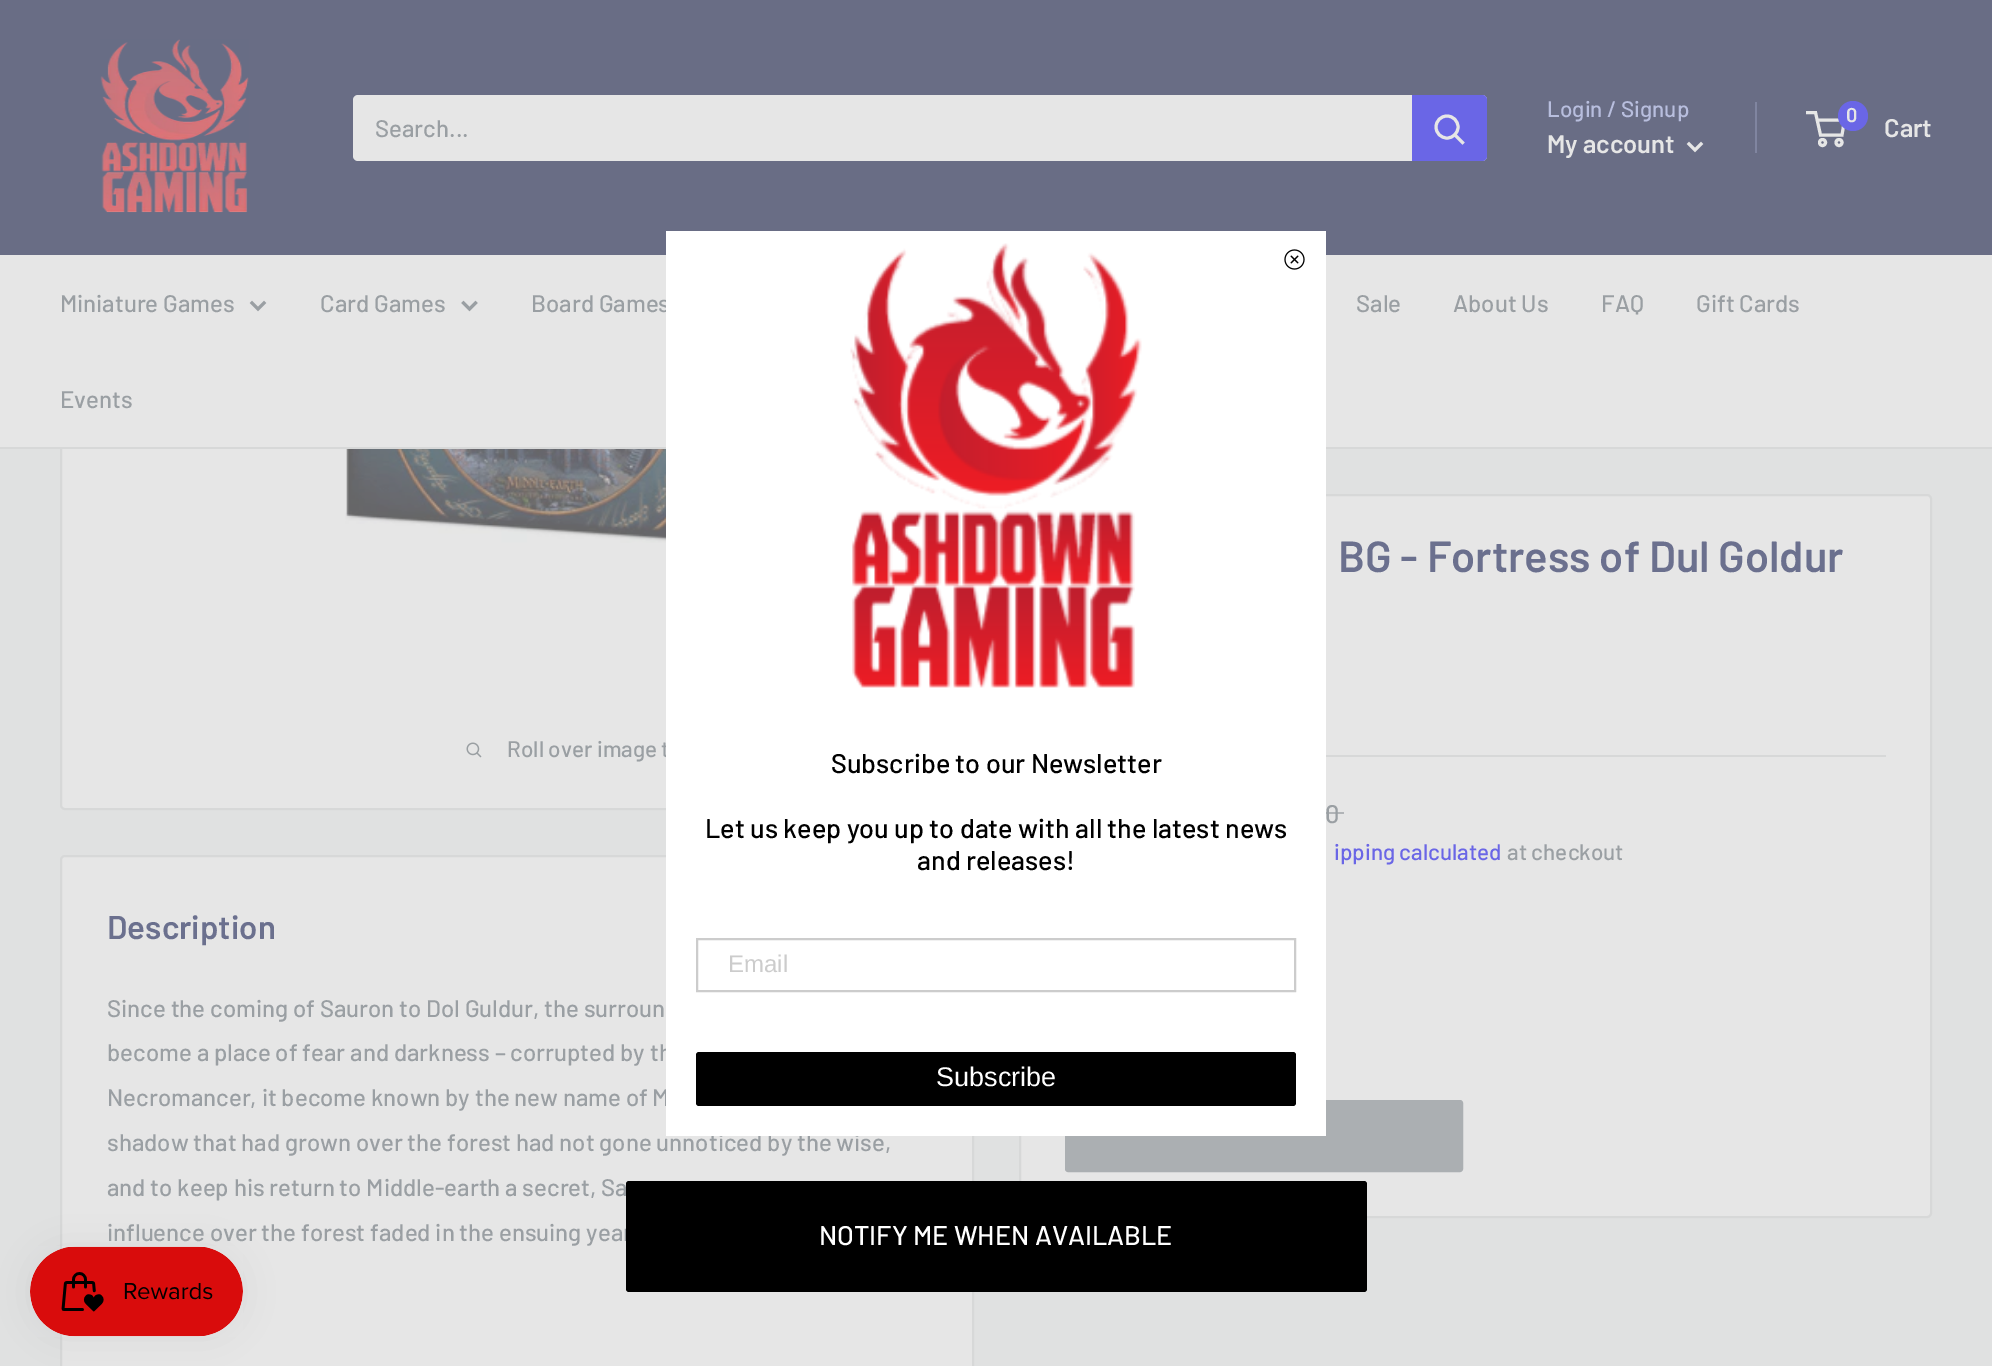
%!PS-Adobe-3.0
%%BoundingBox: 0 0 1992 1366
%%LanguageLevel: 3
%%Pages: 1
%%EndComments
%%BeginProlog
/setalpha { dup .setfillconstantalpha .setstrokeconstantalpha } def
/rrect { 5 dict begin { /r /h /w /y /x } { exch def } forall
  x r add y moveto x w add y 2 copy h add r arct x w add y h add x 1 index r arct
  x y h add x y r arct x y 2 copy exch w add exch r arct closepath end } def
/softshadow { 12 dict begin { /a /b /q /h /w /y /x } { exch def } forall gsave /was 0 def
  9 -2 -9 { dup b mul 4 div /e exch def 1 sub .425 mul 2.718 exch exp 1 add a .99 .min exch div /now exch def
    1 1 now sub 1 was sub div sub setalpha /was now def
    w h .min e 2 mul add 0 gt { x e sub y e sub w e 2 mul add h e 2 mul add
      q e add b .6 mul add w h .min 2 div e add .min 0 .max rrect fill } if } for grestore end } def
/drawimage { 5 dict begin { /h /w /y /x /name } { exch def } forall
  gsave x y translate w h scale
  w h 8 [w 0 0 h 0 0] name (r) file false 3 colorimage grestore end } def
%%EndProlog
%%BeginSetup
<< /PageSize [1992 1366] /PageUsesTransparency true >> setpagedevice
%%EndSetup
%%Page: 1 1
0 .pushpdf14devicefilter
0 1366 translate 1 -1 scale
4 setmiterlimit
0.878 0.882 0.882 setrgbcolor
0 0 1992 1366 rectfill
0.902 setgray
61 -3 912 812 4 rrect gsave fill grestore
0.843 0.847 0.847 setrgbcolor
2 setlinewidth
stroke
0.412 0.427 0.522 setrgbcolor
0 0 1992 255 rectfill
(images/1.raw) 100 39 149 174 drawimage
0.902 setgray
353 95 1134 66 5 rrect fill
0.416 0.4 0.902 setrgbcolor
newpath 1412 95 moveto 1482 95 lineto 1485 95 1487 97 1487 100 curveto 1487 156 lineto 1487 159 1485 161 1482 161 curveto 1412 161 lineto closepath fill
0.902 setgray
3 setlinewidth
2 setlinecap
newpath 1462.5 142.5 moveto 1455 135 lineto stroke
0 setlinecap
newpath 1447 127 11 0 360 arc closepath stroke
0.502 0.522 0.627 setrgbcolor
1755 102 2 51 rectfill
0.902 setgray
2 setlinecap
newpath 1701 144 moveto 1695 150 lineto 1689 144 lineto stroke
0 setlinecap
newpath 1822.5 142.5 3 0 360 arc closepath stroke
newpath 1839 142.5 3 0 360 arc closepath stroke
newpath 1817 120 moveto 1844.5 120 lineto 1842 135 lineto 1820.5 135 lineto 1815.5 112.5 lineto 1806 112.5 lineto stroke
0.416 0.4 0.902 setrgbcolor
newpath 1853 116 15 0 360 arc closepath fill
0.902 setgray
0 255 1992 192 rectfill
0.843 0.847 0.847 setrgbcolor
0 447 1992 2 rectfill
0.604 0.624 0.639 setrgbcolor
2 setlinecap
newpath 264 303 moveto 258 309 lineto 252 303 lineto stroke
newpath 475.5 303 moveto 469.5 309 lineto 463.5 303 lineto stroke
(images/2.raw) 345 449 321 102 drawimage
(images/3.raw) 466 742 16 16 drawimage
0.902 setgray
1020 495 911 722 4 rrect gsave fill grestore
0.843 0.847 0.847 setrgbcolor
2 setlinewidth
0 setlinecap
stroke
1326 755 560 2 rectfill
0.671 0.686 0.698 setrgbcolor
1066 1101 396 70 2 rrect gsave fill grestore
stroke
0.902 setgray
61 856 912 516 4 rrect gsave fill grestore
0.843 0.847 0.847 setrgbcolor
stroke
0 setgray
30 1247 213 90 45 19 0.05 softshadow
(images/6.raw) 30 1246 213 91 drawimage
/Barlow-Medium [24 0 0 -24 0 0] selectfont
0.604 0.624 0.639 setrgbcolor
375 137 moveto (Search...) show
/Barlow-Medium [22.5 0 0 -22.5 0 0] selectfont
0.722 0.745 0.871 setrgbcolor
1547 117 moveto (Login / Signup) show
/Barlow-SemiBold [25.5 0 0 -25.5 0 0] selectfont
0.902 setgray
1547 153 moveto (My account) show
/Barlow-SemiBold [20 0 0 -20 0 0] selectfont
1846 122 moveto (0) show
/Barlow-SemiBold [25.5 0 0 -25.5 0 0] selectfont
1884 137 moveto (Cart) show
/Barlow-Medium [24 0 0 -24 0 0] selectfont
0.604 0.624 0.639 setrgbcolor
60 312 moveto (Miniature Games) show
320 312 moveto (Card Games) show
531 312 moveto (Board Games) show
1356 312 moveto (Sale) show
1453 312 moveto (About Us) show
1601 312 moveto (FAQ) show
1696 312 moveto (Gift Cards) show
60 408 moveto (Events) show
/Barlow-Medium [22.5 0 0 -22.5 0 0] selectfont
507 757 moveto (Roll over image t) show
/Barlow-SemiBold [43.5 0 0 -43.5 0 0] selectfont
0.42 0.439 0.557 setrgbcolor
1338 572 moveto (BG - Fortress of Dul Goldur) show
/Barlow-Medium [25.5 0 0 -25.5 0 0] selectfont
0.604 0.624 0.639 setrgbcolor
1325 823 moveto (0) show
0.7 setalpha
1326 812 18 2 rectfill
/Barlow-Medium [22.5 0 0 -22.5 0 0] selectfont
1 setalpha
0.416 0.4 0.902 setrgbcolor
1334 860 moveto (ipping calculated) show
0.604 0.624 0.639 setrgbcolor
1507 860 moveto (at checkout) show
/Barlow-SemiBold [33 0 0 -33 0 0] selectfont
0.42 0.439 0.557 setrgbcolor
107 939 moveto (Description) show
/Barlow-Medium [24 0 0 -24 0 0] selectfont
0.604 0.624 0.639 setrgbcolor
107 1017 moveto (Since the coming of Sauron to Dol Guldur, the surroun) show
107 1061 moveto (become a place of fear and darkness – corrupted by th) show
107 1106 moveto (Necromancer, it become known by the new name of M) show
107 1151 moveto (shadow that had grown over the forest had not gone unnoticed by the wise,) show
107 1196 moveto (and to keep his return to Middle-earth a secret, Sa) show
107 1241 moveto (influence over the forest faded in the ensuing year) show
1 setgray
666 231 660 905 rectfill
(images/4.raw) 1284 249 21 21 drawimage
(images/5.raw) 850 243 292 445 drawimage
/Barlow-Medium [27 0 0 -27 0 0] selectfont
0 setgray
831 773 moveto (Subscribe to our Newsletter) show
705 838 moveto (Let us keep you up to date with all the latest news) show
917 870 moveto (and releases!) show
0.8 setgray
697 939 598 52 rectstroke
/LiberationSans-Regular [24 0 0 -24 0 0] selectfont
728 972 moveto (Email) show
0 setgray
696 1052 600 54 3 rrect fill
/LiberationSans-Regular [27 0 0 -27 0 0] selectfont
1 setgray
936 1086 moveto (Subscribe) show
0 setgray
626 1181 741 111 3 rrect fill
/Barlow-Medium [27 0 0 -27 0 0] selectfont
1 setgray
819 1245 moveto (NOTIFY ME WHEN AVAILABLE) show
.poppdf14devicefilter showpage
%%EOF
